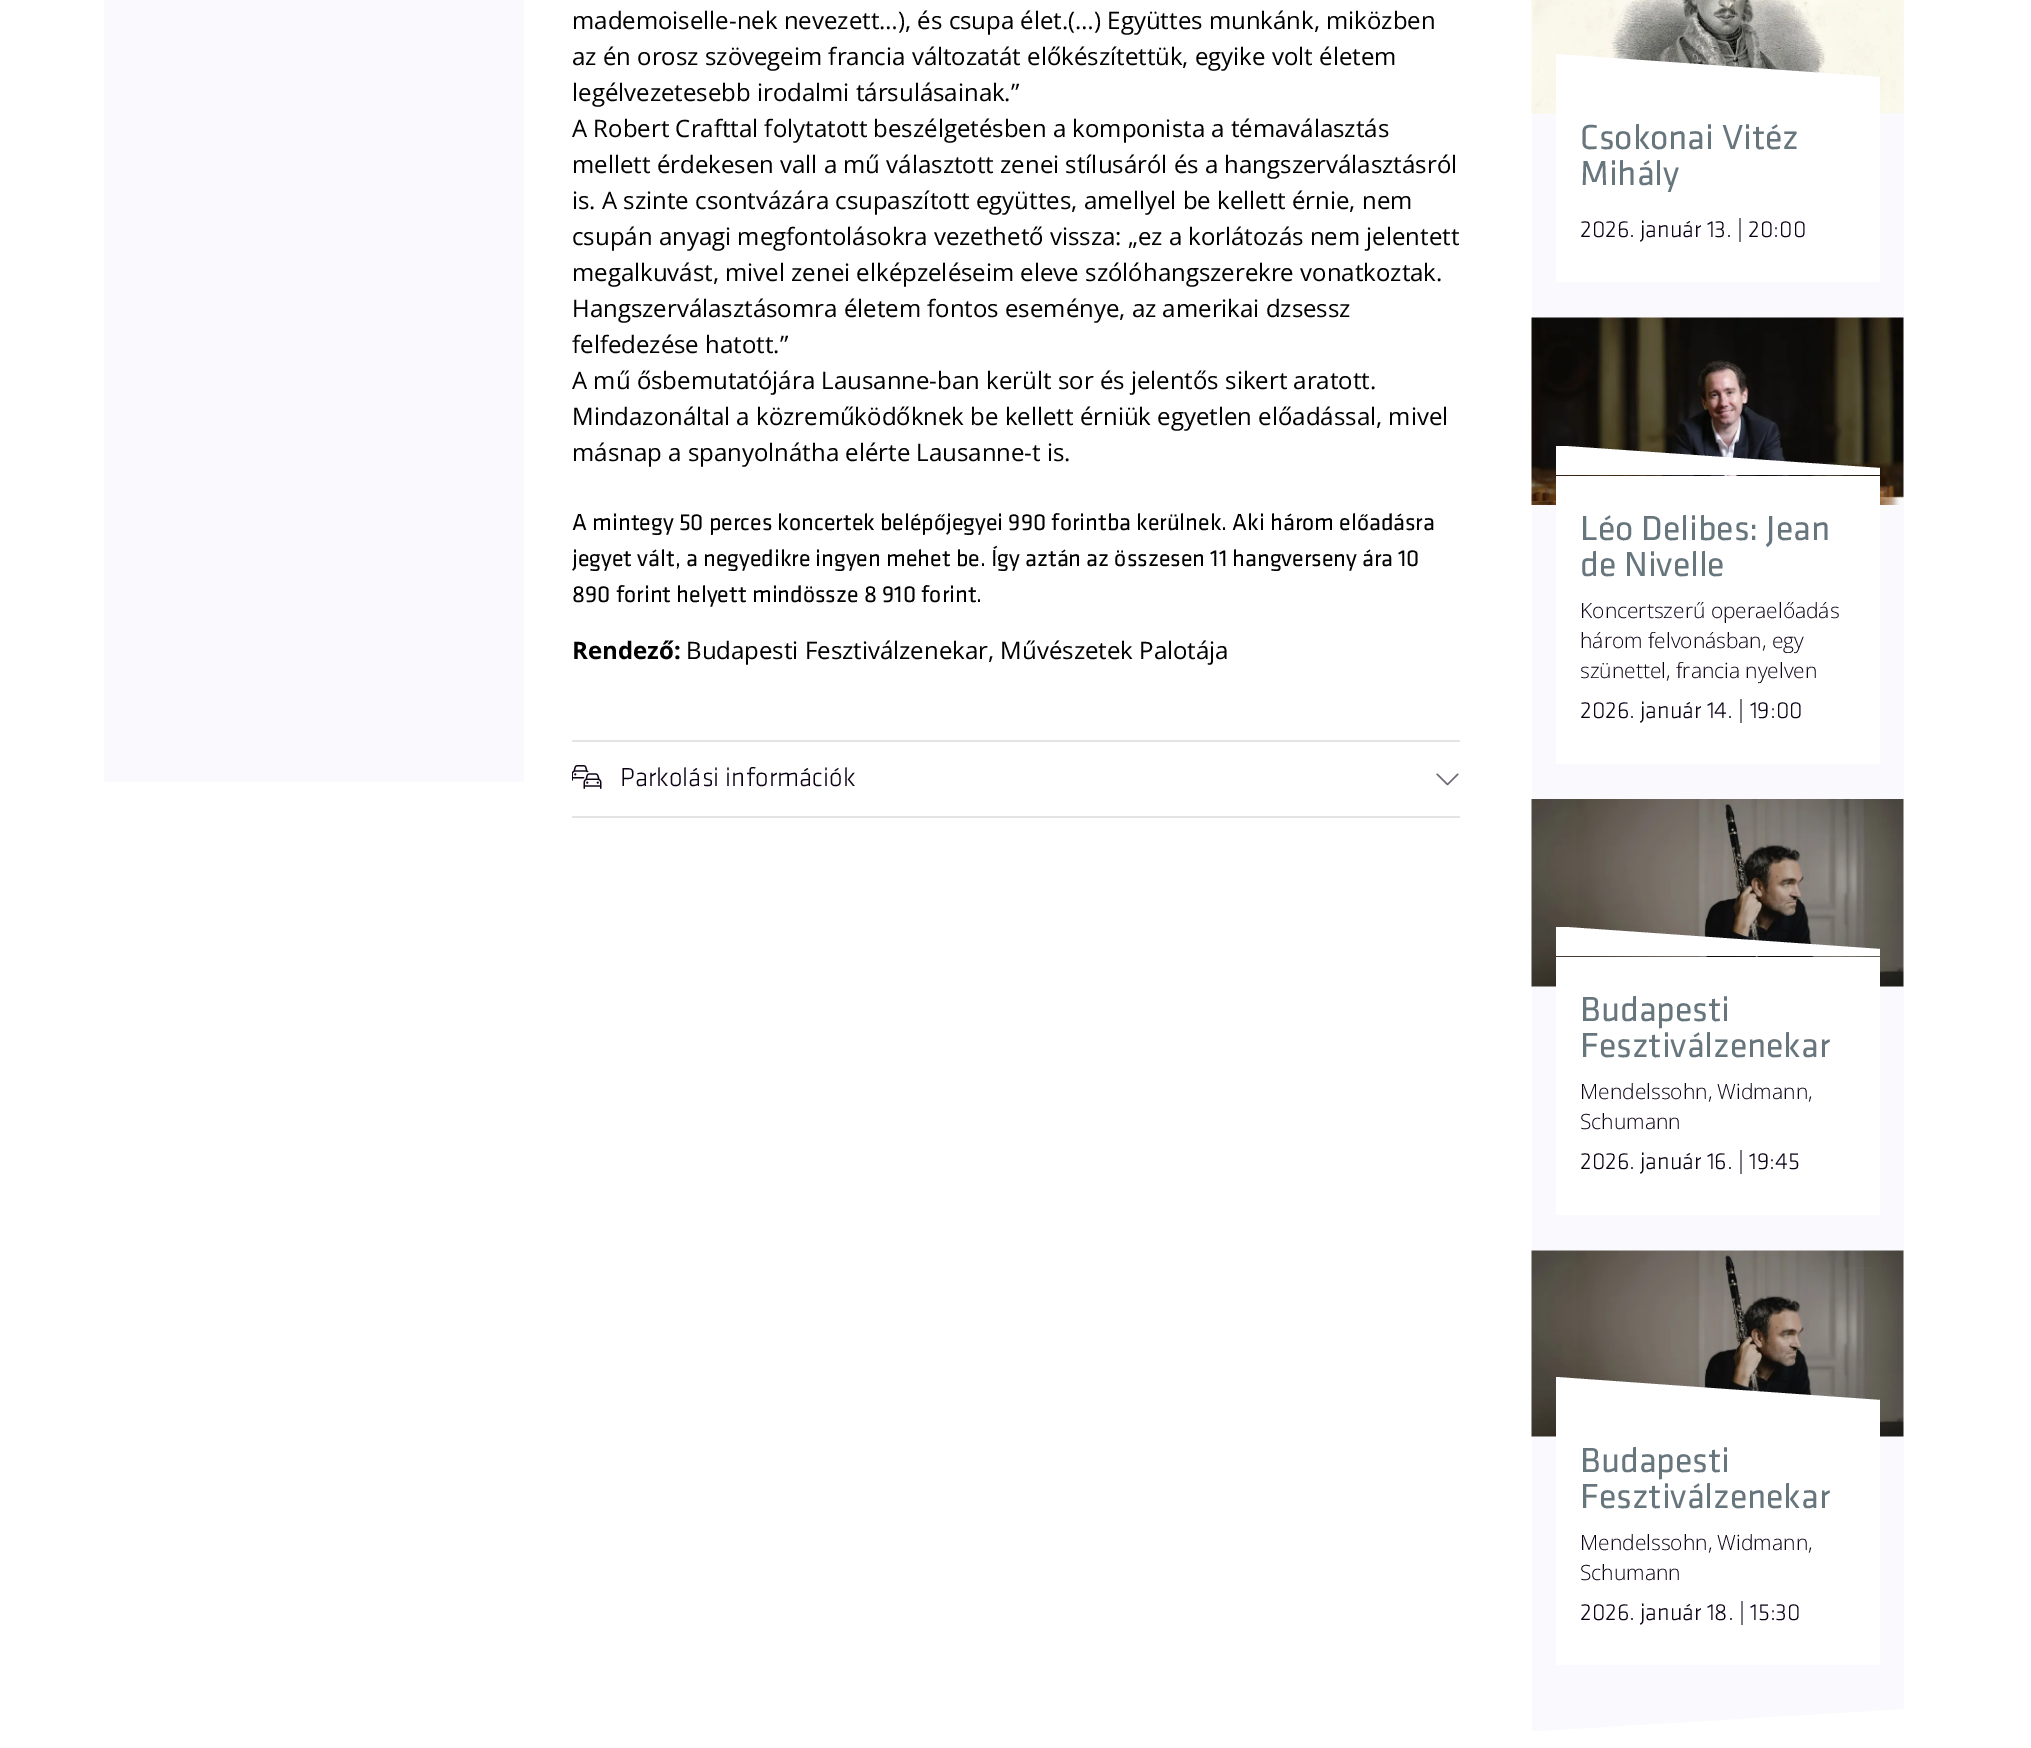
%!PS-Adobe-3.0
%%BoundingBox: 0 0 2031 1748
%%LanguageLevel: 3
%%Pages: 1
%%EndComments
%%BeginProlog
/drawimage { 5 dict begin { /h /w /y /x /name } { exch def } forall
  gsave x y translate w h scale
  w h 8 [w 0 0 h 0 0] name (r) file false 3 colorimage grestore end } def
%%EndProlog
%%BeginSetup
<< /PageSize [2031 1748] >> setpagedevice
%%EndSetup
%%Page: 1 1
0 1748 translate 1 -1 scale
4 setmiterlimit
1 setgray
0 0 2031 1748 rectfill
0.98 0.98 0.996 setrgbcolor
104 0 420 782 rectfill
0.894 0.894 0.906 setrgbcolor
572 816 888 2 rectfill
572 740 888 2 rectfill
(images/1.raw) 572 765 30 24 drawimage
(images/2.raw) 1436 773 23 13 drawimage
0.98 0.98 0.996 setrgbcolor
1532 0 372 1701 rectfill
(images/3.raw) 1531 0 373 114 drawimage
1 setgray
1556 84 324 198 rectfill
newpath 1880 84 moveto 1556 84 lineto 1556 54 lineto 1880 77 lineto closepath fill
(images/4.raw) 1531 317 373 188 drawimage
1556 476 324 288 rectfill
newpath 1556 446 moveto 1556 475 lineto 1880 475 lineto 1880 468 lineto 1565 446 lineto closepath fill
(images/5.raw) 1531 799 373 188 drawimage
1556 957 324 258 rectfill
newpath 1556 927 moveto 1556 956 lineto 1880 956 lineto 1880 949 lineto 1566 927 lineto closepath fill
(images/6.raw) 1531 1250 373 187 drawimage
1556 1407 324 258 rectfill
newpath 1880 1407 moveto 1556 1407 lineto 1556 1377 lineto 1880 1400 lineto closepath fill
0.98 0.98 0.996 setrgbcolor
newpath 1904 1701 moveto 1904 1709 lineto 1536 1731 lineto 1532 1731 lineto 1532 1701 lineto closepath fill
/OpenSans-Regular [24 0 0 -24 0 0] selectfont
0 setgray
572 29 moveto (mademoiselle-nek nevezett…\), és csupa élet.\(…\) Együttes munkánk, miközben) show
572 65 moveto (az én orosz szövegeim francia változatát előkészítettük, egyike volt életem) show
572 101 moveto (legélvezetesebb irodalmi társulásainak.”) show
572 137 moveto (A Robert Crafttal folytatott beszélgetésben a komponista a témaválasztás) show
572 173 moveto (mellett érdekesen vall a mű választott zenei stílusáról és a hangszerválasztásról) show
572 209 moveto (is. A szinte csontvázára csupaszított együttes, amellyel be kellett érnie, nem) show
572 245 moveto (csupán anyagi megfontolásokra vezethető vissza: „ez a korlátozás nem jelentett) show
572 281 moveto (megalkuvást, mivel zenei elképzeléseim eleve szólóhangszerekre vonatkoztak.) show
572 317 moveto (Hangszerválasztásomra életem fontos eseménye, az amerikai dzsessz) show
572 353 moveto (felfedezése hatott.”) show
572 389 moveto (A mű ősbemutatójára Lausanne-ban került sor és jelentős sikert aratott.) show
572 425 moveto (Mindazonáltal a közreműködőknek be kellett érniük egyetlen előadással, mivel) show
572 461 moveto (másnap a spanyolnátha elérte Lausanne-t is.) show
/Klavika-Regular [24 0 0 -24 0 0] selectfont
572 530 moveto (A mintegy 50 perces koncertek belépőjegyei 990 forintba kerülnek. Aki három előadásra) show
572 566 moveto (jegyet vált, a negyedikre ingyen mehet be. Így aztán az összesen 11 hangverseny ára 10) show
572 602 moveto (890 forint helyett mindössze 8 910 forint.) show
/OpenSans-Bold [24 0 0 -24 0 0] selectfont
572 659 moveto (Rendező:) show
/OpenSans-Regular [24 0 0 -24 0 0] selectfont
686 659 moveto (Budapesti Fesztiválzenekar, Művészetek Palotája) show
/Klavika-Light [27 0 0 -27 0 0] selectfont
0.051 0.004 0.086 setrgbcolor
620 786 moveto (Parkolási információk) show
/Klavika-Regular [36 0 0 -36 0 0] selectfont
0.404 0.459 0.49 setrgbcolor
1580 149 moveto (Csokonai Vitéz) show
1580 185 moveto (Mihály) show
/Klavika-Light [24 0 0 -24 0 0] selectfont
0.051 0.004 0.086 setrgbcolor
1580 237 moveto (2026. január 13. | 20:00) show
/Klavika-Regular [36 0 0 -36 0 0] selectfont
0.404 0.459 0.49 setrgbcolor
1580 540 moveto (Léo Delibes: Jean) show
1580 576 moveto (de Nivelle) show
/OpenSans-Light [21 0 0 -21 0 0] selectfont
0.051 0.004 0.086 setrgbcolor
1580 618 moveto (Koncertszerű operaelőadás) show
1580 648 moveto (három felvonásban, egy) show
1580 678 moveto (szünettel, francia nyelven) show
/Klavika-Light [24 0 0 -24 0 0] selectfont
1580 718 moveto (2026. január 14. | 19:00) show
/Klavika-Regular [36 0 0 -36 0 0] selectfont
0.404 0.459 0.49 setrgbcolor
1580 1021 moveto (Budapesti) show
1580 1057 moveto (Fesztiválzenekar) show
/OpenSans-Light [21 0 0 -21 0 0] selectfont
0.051 0.004 0.086 setrgbcolor
1580 1099 moveto (Mendelssohn, Widmann,) show
1580 1129 moveto (Schumann) show
/Klavika-Light [24 0 0 -24 0 0] selectfont
1580 1169 moveto (2026. január 16. | 19:45) show
/Klavika-Regular [36 0 0 -36 0 0] selectfont
0.404 0.459 0.49 setrgbcolor
1580 1472 moveto (Budapesti) show
1580 1508 moveto (Fesztiválzenekar) show
/OpenSans-Light [21 0 0 -21 0 0] selectfont
0.051 0.004 0.086 setrgbcolor
1580 1550 moveto (Mendelssohn, Widmann,) show
1580 1580 moveto (Schumann) show
/Klavika-Light [24 0 0 -24 0 0] selectfont
1580 1620 moveto (2026. január 18. | 15:30) show
showpage
%%EOF
